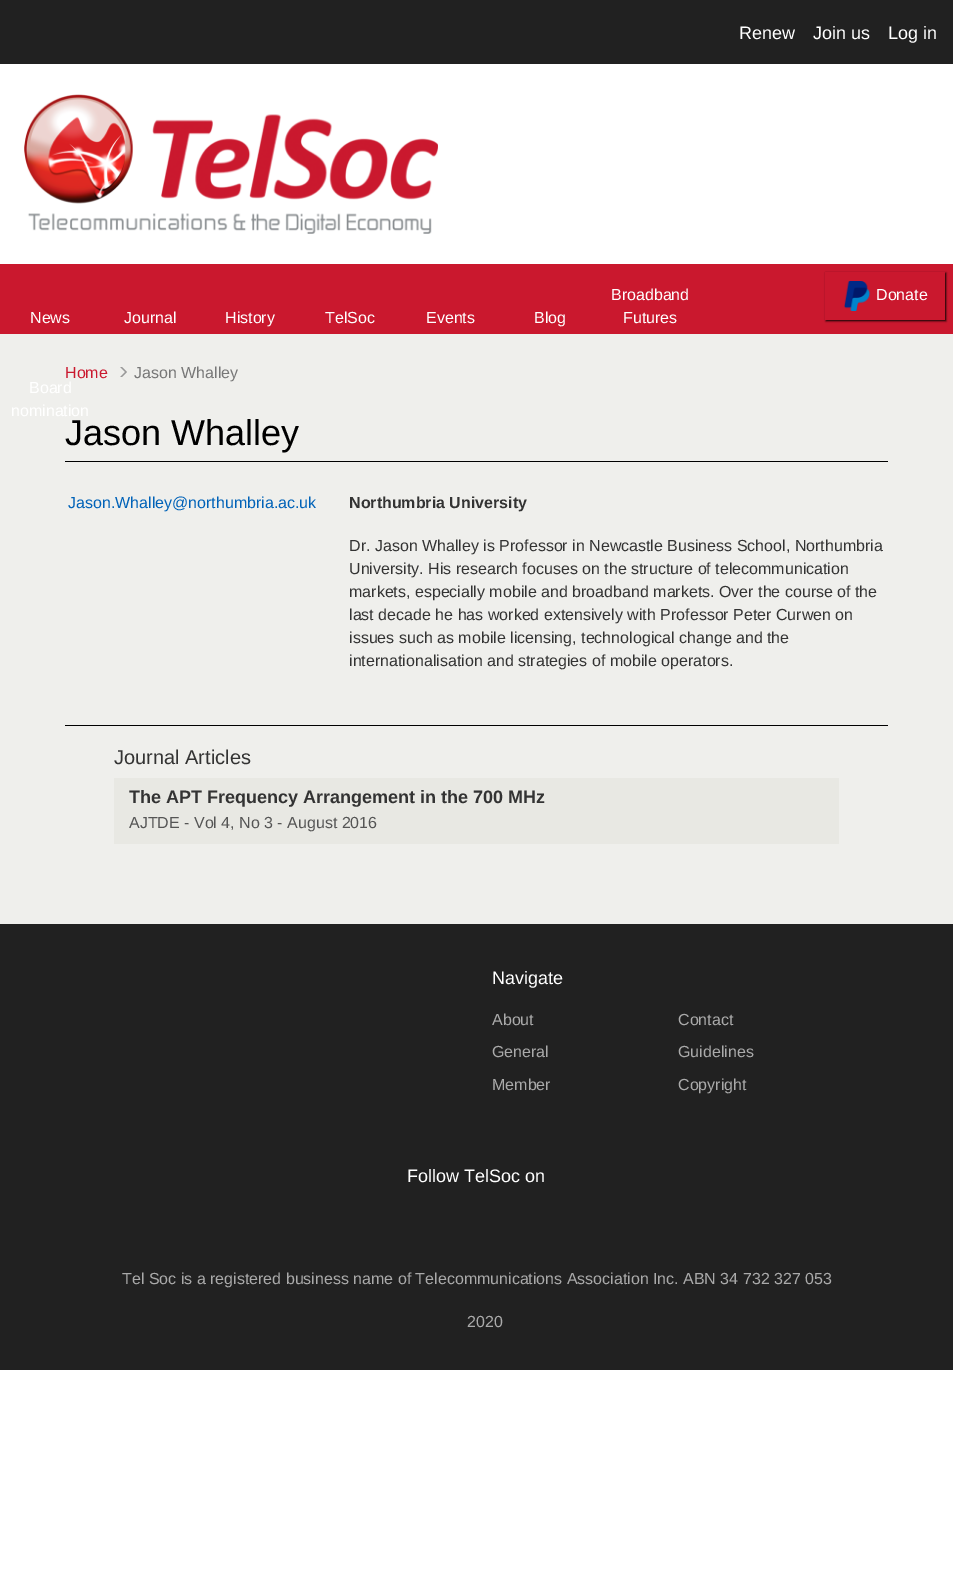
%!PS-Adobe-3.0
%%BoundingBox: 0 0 953 1591
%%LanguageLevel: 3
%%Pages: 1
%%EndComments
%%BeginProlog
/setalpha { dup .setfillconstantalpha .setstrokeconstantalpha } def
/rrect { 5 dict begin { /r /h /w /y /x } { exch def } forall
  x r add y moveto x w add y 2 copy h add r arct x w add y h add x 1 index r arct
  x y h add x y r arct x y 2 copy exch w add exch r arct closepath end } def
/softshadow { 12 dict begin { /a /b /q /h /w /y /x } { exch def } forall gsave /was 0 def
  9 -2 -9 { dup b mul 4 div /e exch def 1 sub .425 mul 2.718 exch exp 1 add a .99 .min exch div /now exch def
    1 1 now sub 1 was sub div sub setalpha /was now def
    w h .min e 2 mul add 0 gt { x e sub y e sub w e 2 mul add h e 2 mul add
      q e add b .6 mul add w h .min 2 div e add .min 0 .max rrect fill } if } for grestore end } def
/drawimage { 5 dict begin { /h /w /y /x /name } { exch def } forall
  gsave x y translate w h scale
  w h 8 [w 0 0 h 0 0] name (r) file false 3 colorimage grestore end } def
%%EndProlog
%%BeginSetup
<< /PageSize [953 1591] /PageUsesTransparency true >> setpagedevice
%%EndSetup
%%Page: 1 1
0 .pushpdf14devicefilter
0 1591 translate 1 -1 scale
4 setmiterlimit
1 setgray
0 0 953 1591 rectfill
0.129 setgray
0 0 953 64 rectfill
(images/1.raw) 24 94 414 140 drawimage
0.792 0.094 0.18 setrgbcolor
0 264 953 70 rectfill
gsave
newpath 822 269 moveto 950 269 lineto 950 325 lineto 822 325 lineto closepath 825 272 moveto 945 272 lineto 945 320 lineto 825 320 lineto closepath eoclip newpath
0 setgray
826 273 120 48 0 1 1 softshadow
grestore
(images/2.raw) 844 281 27 30 drawimage
0.937 0.937 0.925 setrgbcolor
0 334 953 590 rectfill
(images/3.raw) 120 367 7 10 drawimage
0 setgray
65 461 823 1 rectfill
65 725 823 1 rectfill
0.91 0.91 0.89 setrgbcolor
114 778 725 66 rectfill
0.129 setgray
0 924 953 446 rectfill
/LiberationSans-Regular [18 0 0 -18 0 0] selectfont
1 setgray
739 39 moveto (Renew) show
813 39 moveto (Join us) show
888 39 moveto (Log in) show
/LiberationSans-Regular [16 0 0 -16 0 0] selectfont
30 323 moveto (News) show
124 323 moveto (Journal) show
225 323 moveto (History) show
325 323 moveto (TelSoc) show
426 323 moveto (Events) show
534 323 moveto (Blog) show
611 300 moveto (Broadband) show
623 323 moveto (Futures) show
29 393 moveto (Board) show
11 416 moveto (nomination) show
876 300 moveto (Donate) show
0.792 0.094 0.18 setrgbcolor
65 378 moveto (Home) show
0.467 setgray
134 378 moveto (Jason Whalley) show
/LiberationSans-Regular [36 0 0 -36 0 0] selectfont
0 setgray
65 445 moveto (Jason Whalley) show
/LiberationSans-Regular [16 0 0 -16 0 0] selectfont
0 0.384 0.722 setrgbcolor
68 508 moveto (Jason.Whalley@northumbria.ac.uk) show
/LiberationSans-Bold [16 0 0 -16 0 0] selectfont
0.2 setgray
349 508 moveto (Northumbria University) show
/LiberationSans-Regular [16 0 0 -16 0 0] selectfont
349 551 moveto (Dr. Jason Whalley is Professor in Newcastle Business School, Northumbria) show
349 574 moveto (University. His research focuses on the structure of telecommunication) show
349 597 moveto (markets, especially mobile and broadband markets. Over the course of the) show
349 620 moveto (last decade he has worked extensively with Professor Peter Curwen on) show
349 643 moveto (issues such as mobile licensing, technological change and the) show
349 666 moveto (internationalisation and strategies of mobile operators.) show
/LiberationSans-Regular [20 0 0 -20 0 0] selectfont
114 764 moveto (Journal Articles) show
/LiberationSans-Bold [18 0 0 -18 0 0] selectfont
129 803 moveto (The APT Frequency Arrangement in the 700 MHz) show
/LiberationSans-Regular [16 0 0 -16 0 0] selectfont
0.333 setgray
129 828 moveto (AJTDE - Vol 4, No 3 - August 2016) show
/LiberationSans-Regular [18 0 0 -18 0 0] selectfont
1 setgray
492 984 moveto (Navigate) show
/LiberationSans-Regular [16 0 0 -16 0 0] selectfont
0.667 setgray
492 1025 moveto (About) show
678 1025 moveto (Contact) show
492 1057 moveto (General) show
678 1057 moveto (Guidelines) show
492 1090 moveto (Member) show
678 1090 moveto (Copyright) show
/LiberationSans-Regular [18 0 0 -18 0 0] selectfont
1 setgray
407 1182 moveto (Follow TelSoc on) show
/LiberationSans-Regular [16 0 0 -16 0 0] selectfont
0.667 setgray
122 1284 moveto (Tel Soc is a registered business name of Telecommunications Association Inc. ABN 34 732 327 053) show
467 1327 moveto (2020) show
.poppdf14devicefilter showpage
%%EOF
